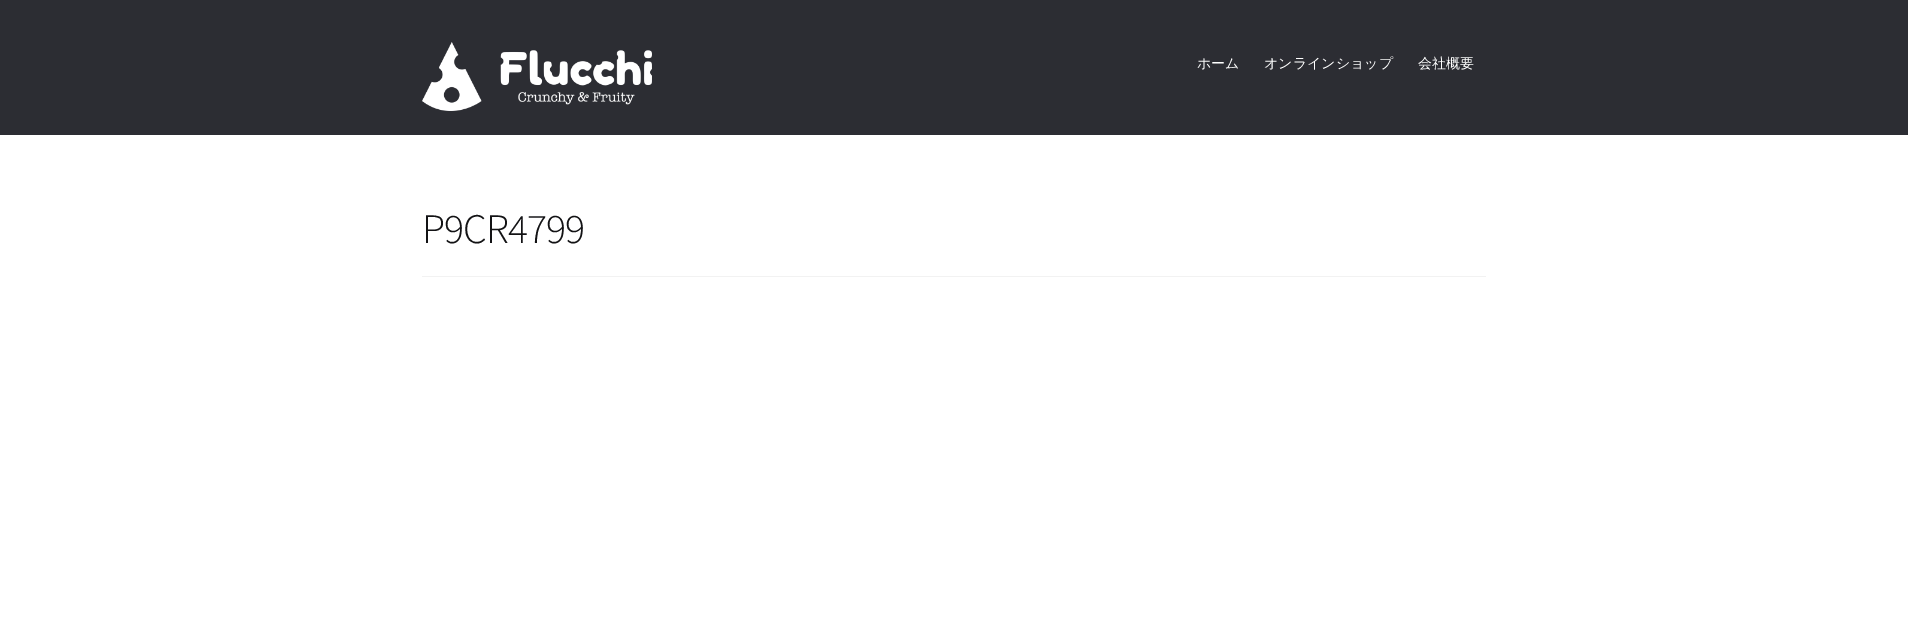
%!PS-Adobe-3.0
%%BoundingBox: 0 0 1908 625
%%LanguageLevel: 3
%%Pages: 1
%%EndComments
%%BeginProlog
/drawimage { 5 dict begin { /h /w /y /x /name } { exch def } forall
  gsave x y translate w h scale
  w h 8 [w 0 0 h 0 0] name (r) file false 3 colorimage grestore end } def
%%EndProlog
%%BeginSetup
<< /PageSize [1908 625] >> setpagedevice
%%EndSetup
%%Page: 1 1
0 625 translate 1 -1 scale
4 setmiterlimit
1 setgray
0 0 1908 625 rectfill
0.173 0.176 0.2 setrgbcolor
0 0 1908 135 rectfill
(images/1.raw) 422 42 230 69 drawimage
0.949 setgray
422 276 1064 1 rectfill
/WenQuanYiZenHei-Medium [14 0 0 -14 0 0] selectfont
1 setgray
1197 68 moveto (ホーム) show
1264 68 moveto (オンラインショップ) show
1418 68 moveto (会社概要) show
/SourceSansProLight-Light [42 0 0 -42 0 0] selectfont
0.075 0.075 0.082 setrgbcolor
422 243 moveto -1 0 (P9CR4799) ashow
showpage
%%EOF
